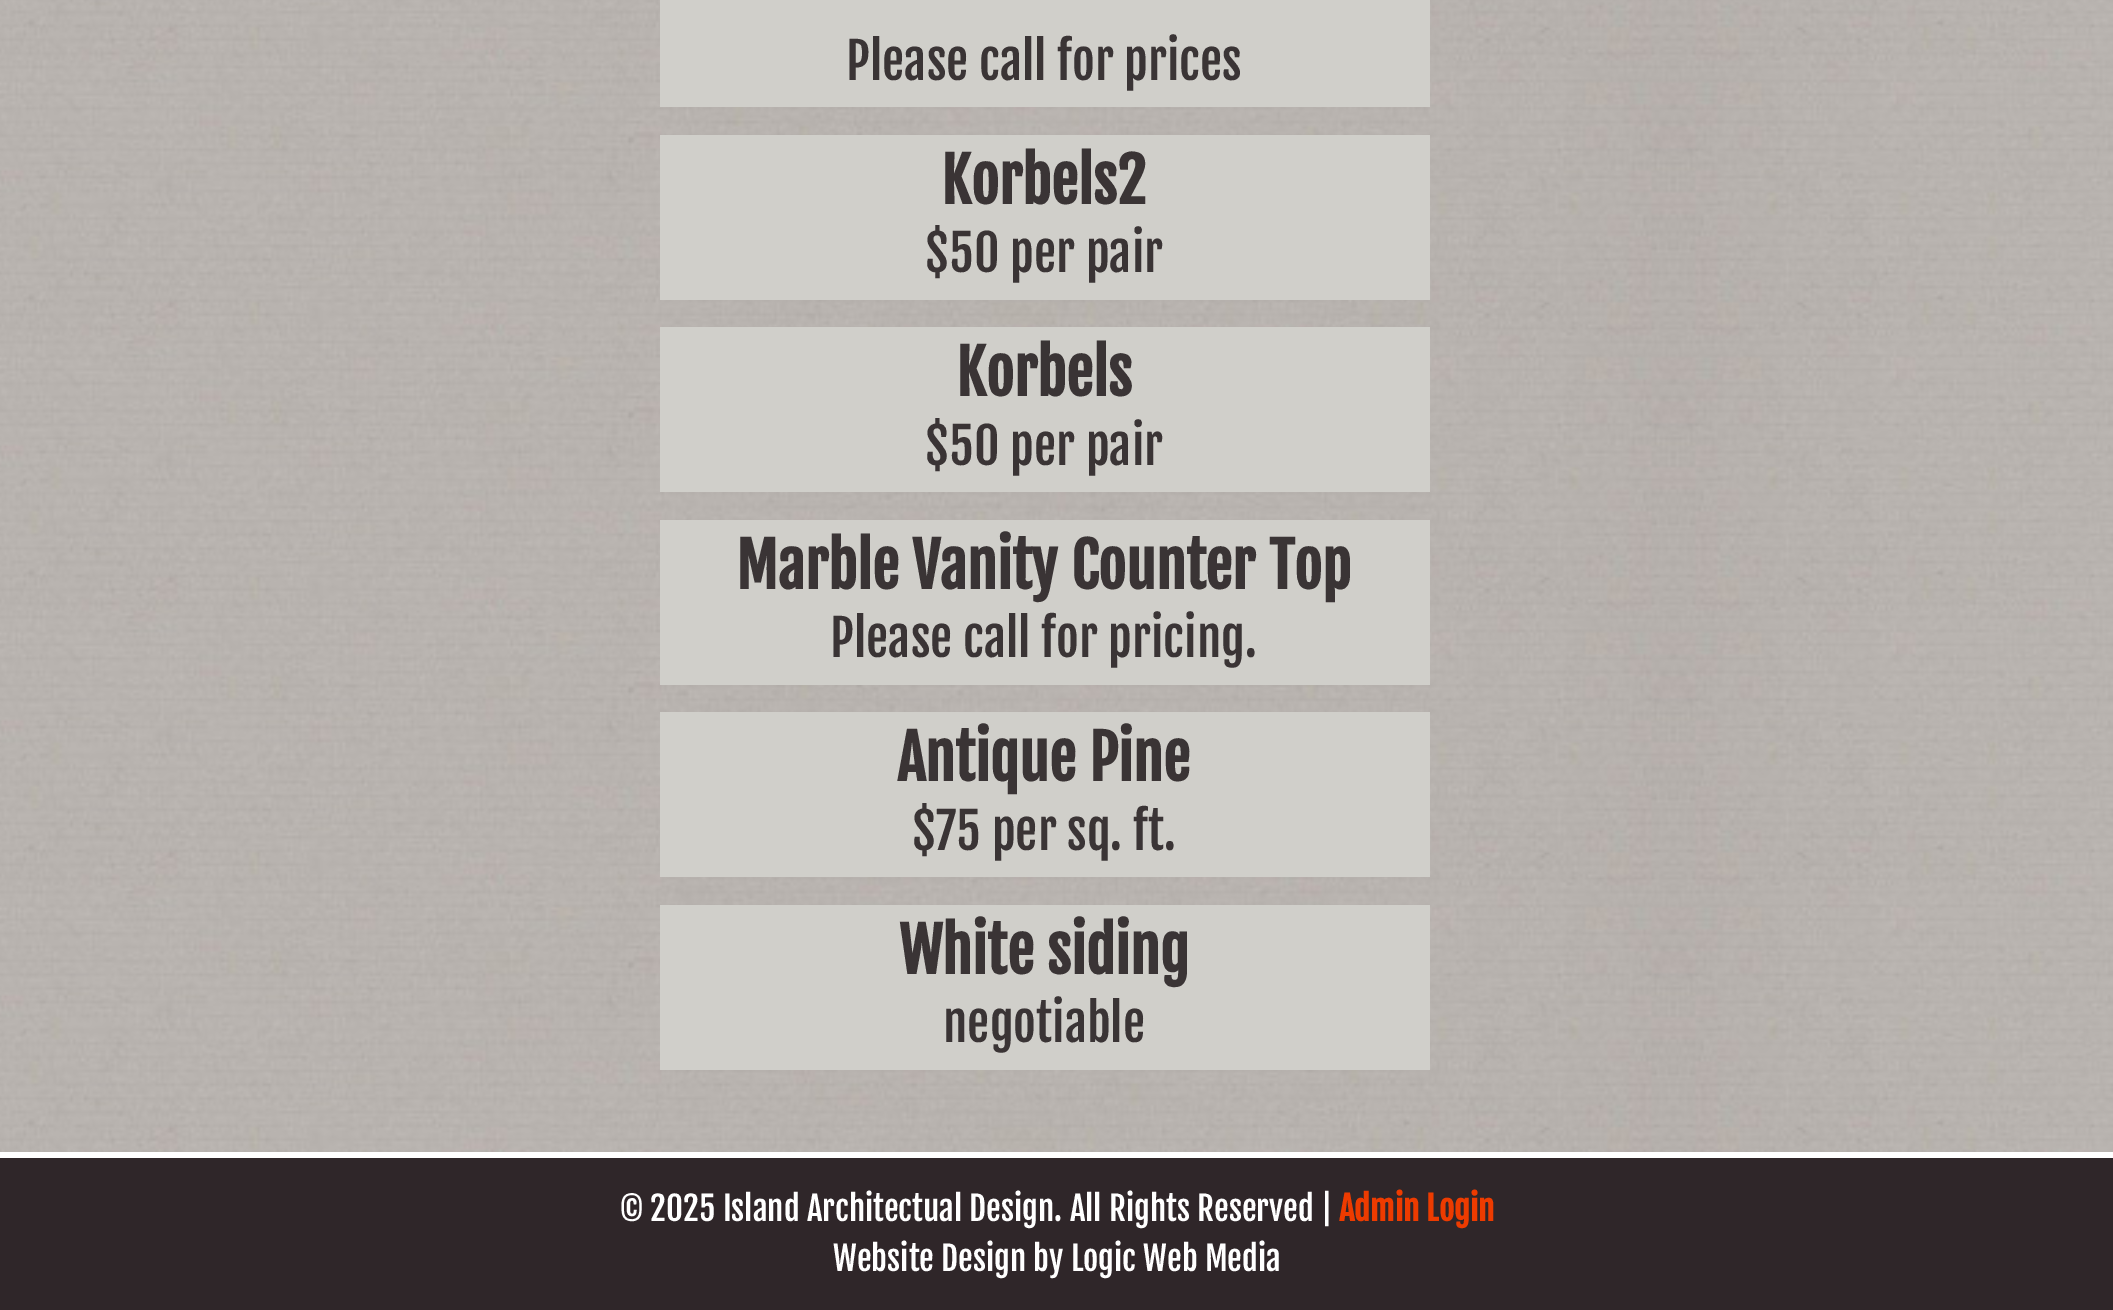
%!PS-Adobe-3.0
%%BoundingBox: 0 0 2113 1310
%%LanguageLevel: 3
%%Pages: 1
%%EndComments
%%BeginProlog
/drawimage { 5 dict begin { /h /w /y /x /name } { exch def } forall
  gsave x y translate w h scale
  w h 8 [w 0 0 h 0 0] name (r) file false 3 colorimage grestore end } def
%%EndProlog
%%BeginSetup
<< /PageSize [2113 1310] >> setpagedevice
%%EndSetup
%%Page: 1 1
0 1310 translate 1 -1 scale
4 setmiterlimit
1 setgray
0 0 2113 1310 rectfill
(images/1.raw) 0 0 2113 1152 drawimage
0.816 0.812 0.792 setrgbcolor
660 0 770 107 rectfill
660 135 770 165 rectfill
660 327 770 165 rectfill
660 520 770 165 rectfill
660 712 770 165 rectfill
660 905 770 165 rectfill
0.184 0.149 0.161 setrgbcolor
0 1158 2113 152 rectfill
/FjallaOne-Regular [49.5 0 0 -49.5 0 0] selectfont
0.227 0.204 0.208 setrgbcolor
846 80 moveto (Please call for prices) show
/FjallaOne-Bold [60.5 0 0 -60.5 0 0] selectfont
941 204 moveto (Korbels2) show
/FjallaOne-Regular [49.5 0 0 -49.5 0 0] selectfont
925 272 moveto ($50 per pair) show
/FjallaOne-Bold [60.5 0 0 -60.5 0 0] selectfont
956 396 moveto (Korbels) show
/FjallaOne-Regular [49.5 0 0 -49.5 0 0] selectfont
925 465 moveto ($50 per pair) show
/FjallaOne-Bold [60.5 0 0 -60.5 0 0] selectfont
736 589 moveto (Marble Vanity Counter Top) show
/FjallaOne-Regular [49.5 0 0 -49.5 0 0] selectfont
830 657 moveto (Please call for pricing.) show
/FjallaOne-Bold [60.5 0 0 -60.5 0 0] selectfont
897 781 moveto (Antique Pine) show
/FjallaOne-Regular [49.5 0 0 -49.5 0 0] selectfont
912 850 moveto ($75 per sq. ft.) show
/FjallaOne-Bold [60.5 0 0 -60.5 0 0] selectfont
899 974 moveto (White siding) show
/FjallaOne-Regular [49.5 0 0 -49.5 0 0] selectfont
943 1042 moveto (negotiable) show
/FjallaOne-Regular [33 0 0 -33 0 0] selectfont
1 setgray
620 1221 moveto (© 2025 Island Architectual Design. All Rights Reserved |) show
/FjallaOne-Bold [33 0 0 -33 0 0] selectfont
0.929 0.231 0 setrgbcolor
1339 1221 moveto (Admin Login) show
/FjallaOne-Regular [33 0 0 -33 0 0] selectfont
1 setgray
833 1271 moveto (Website Design by Logic Web Media) show
showpage
%%EOF
